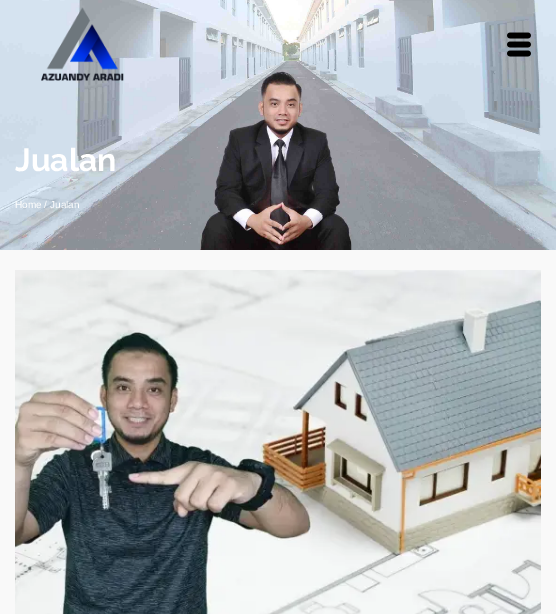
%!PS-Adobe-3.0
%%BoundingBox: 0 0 556 614
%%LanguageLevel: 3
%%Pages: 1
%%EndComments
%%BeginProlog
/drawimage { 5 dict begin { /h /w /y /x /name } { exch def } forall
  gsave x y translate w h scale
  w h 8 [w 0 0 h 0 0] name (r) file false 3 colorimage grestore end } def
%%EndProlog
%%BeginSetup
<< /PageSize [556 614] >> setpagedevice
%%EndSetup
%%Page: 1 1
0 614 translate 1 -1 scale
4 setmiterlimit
0.976 setgray
0 0 556 614 rectfill
(images/3.raw) 0 0 556 250 drawimage
(images/1.raw) 41 7 83 74 drawimage
(images/2.raw) 507 32 24 25 drawimage
(images/4.raw) 15 270 526 344 drawimage
/Raleway-Bold [32 0 0 -32 0 0] selectfont
1 setgray
15 171 moveto (Jualan) show
/LiberationSans-Regular [10 0 0 -10 0 0] selectfont
15 208 moveto (Home / Jualan) show
showpage
%%EOF
